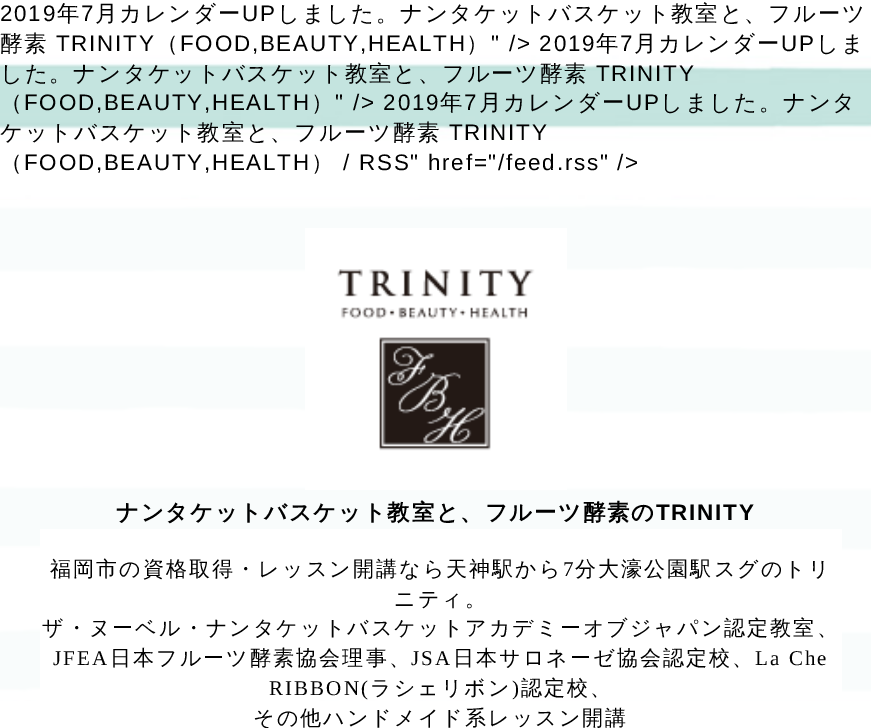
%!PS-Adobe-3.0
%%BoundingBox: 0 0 871 728
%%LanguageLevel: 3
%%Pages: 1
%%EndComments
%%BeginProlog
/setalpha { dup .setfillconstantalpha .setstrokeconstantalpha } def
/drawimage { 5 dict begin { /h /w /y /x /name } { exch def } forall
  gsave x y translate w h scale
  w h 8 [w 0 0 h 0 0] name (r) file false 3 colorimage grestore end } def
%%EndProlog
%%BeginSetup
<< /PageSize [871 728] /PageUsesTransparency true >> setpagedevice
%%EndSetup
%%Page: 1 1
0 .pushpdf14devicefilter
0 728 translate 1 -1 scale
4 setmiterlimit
1 setgray
0 0 871 728 rectfill
(images/1.raw) 0 0 871 728 drawimage
0.9 setalpha
0 200 871 500 rectfill
1 setalpha
(images/2.raw) 305 228 262 262 drawimage
40 529 802 166 rectfill
/LiberationSans-Regular [22.4 0 0 -22.4 0 0] selectfont
0 setgray
0 21 moveto 1.75 0 (2019) ashow
/WenQuanYiZenHei-Medium [22.4 0 0 -22.4 0 0] selectfont
57 21 moveto 1.75 0 (年) ashow
/LiberationSans-Regular [22.4 0 0 -22.4 0 0] selectfont
81 21 moveto 1.75 0 (7) ashow
/WenQuanYiZenHei-Medium [22.4 0 0 -22.4 0 0] selectfont
95 21 moveto 1.75 0 (月カレンダー) ashow
/LiberationSans-Regular [22.4 0 0 -22.4 0 0] selectfont
242 21 moveto 1.75 0 (UP) ashow
/WenQuanYiZenHei-Medium [22.4 0 0 -22.4 0 0] selectfont
277 21 moveto 1.75 0 (しました。ナンタケットバスケット教室と、フルーツ) ashow
0 51 moveto 1.75 0 (酵素) ashow
/LiberationSans-Regular [22.4 0 0 -22.4 0 0] selectfont
56 51 moveto 1.75 0 (TRINITY) ashow
/WenQuanYiZenHei-Medium [22.4 0 0 -22.4 0 0] selectfont
156 51 moveto 1.75 0 (（) ashow
/LiberationSans-Regular [22.4 0 0 -22.4 0 0] selectfont
180 51 moveto 1.75 0 (FOOD,BEAUTY,HEALTH) ashow
/WenQuanYiZenHei-Medium [22.4 0 0 -22.4 0 0] selectfont
466 51 moveto 1.75 0 (）) ashow
/LiberationSans-Regular [22.4 0 0 -22.4 0 0] selectfont
491 51 moveto 1.75 0 (" /> 2019) ashow
/WenQuanYiZenHei-Medium [22.4 0 0 -22.4 0 0] selectfont
596 51 moveto 1.75 0 (年) ashow
/LiberationSans-Regular [22.4 0 0 -22.4 0 0] selectfont
620 51 moveto 1.75 0 (7) ashow
/WenQuanYiZenHei-Medium [22.4 0 0 -22.4 0 0] selectfont
634 51 moveto 1.75 0 (月カレンダー) ashow
/LiberationSans-Regular [22.4 0 0 -22.4 0 0] selectfont
781 51 moveto 1.75 0 (UP) ashow
/WenQuanYiZenHei-Medium [22.4 0 0 -22.4 0 0] selectfont
816 51 moveto 1.75 0 (しま) ashow
0 81 moveto 1.75 0 (した。ナンタケットバスケット教室と、フルーツ酵素) ashow
/LiberationSans-Regular [22.4 0 0 -22.4 0 0] selectfont
596 81 moveto 1.75 0 (TRINITY) ashow
/WenQuanYiZenHei-Medium [22.4 0 0 -22.4 0 0] selectfont
0 110 moveto 1.75 0 (（) ashow
/LiberationSans-Regular [22.4 0 0 -22.4 0 0] selectfont
24 110 moveto 1.75 0 (FOOD,BEAUTY,HEALTH) ashow
/WenQuanYiZenHei-Medium [22.4 0 0 -22.4 0 0] selectfont
311 110 moveto 1.75 0 (）) ashow
/LiberationSans-Regular [22.4 0 0 -22.4 0 0] selectfont
335 110 moveto 1.75 0 (" /> 2019) ashow
/WenQuanYiZenHei-Medium [22.4 0 0 -22.4 0 0] selectfont
440 110 moveto 1.75 0 (年) ashow
/LiberationSans-Regular [22.4 0 0 -22.4 0 0] selectfont
464 110 moveto 1.75 0 (7) ashow
/WenQuanYiZenHei-Medium [22.4 0 0 -22.4 0 0] selectfont
479 110 moveto 1.75 0 (月カレンダー) ashow
/LiberationSans-Regular [22.4 0 0 -22.4 0 0] selectfont
626 110 moveto 1.75 0 (UP) ashow
/WenQuanYiZenHei-Medium [22.4 0 0 -22.4 0 0] selectfont
660 110 moveto 1.75 0 (しました。ナンタ) ashow
0 140 moveto 1.75 0 (ケットバスケット教室と、フルーツ酵素) ashow
/LiberationSans-Regular [22.4 0 0 -22.4 0 0] selectfont
449 140 moveto 1.75 0 (TRINITY) ashow
/WenQuanYiZenHei-Medium [22.4 0 0 -22.4 0 0] selectfont
0 170 moveto 1.75 0 (（) ashow
/LiberationSans-Regular [22.4 0 0 -22.4 0 0] selectfont
24 170 moveto 1.75 0 (FOOD,BEAUTY,HEALTH) ashow
/WenQuanYiZenHei-Medium [22.4 0 0 -22.4 0 0] selectfont
311 170 moveto 1.75 0 (）) ashow
/LiberationSans-Regular [22.4 0 0 -22.4 0 0] selectfont
343 170 moveto 1.75 0 (/ RSS" href="/feed.rss" />) ashow
/WenQuanYiZenHei-Bold [22.4 0 0 -22.4 0 0] selectfont
116 520 moveto 1.75 0 (ナンタケットバスケット教室と、フルーツ酵素の) ashow
/LiberationSans-Bold [22.4 0 0 -22.4 0 0] selectfont
656 520 moveto 1.75 0 (TRINITY) ashow
/WenQuanYiZenHei-Medium [21 0 0 -21 0 0] selectfont
50 576 moveto 2.1 0 (福岡市の資格取得・レッスン開講なら天神駅から) ashow
/LiberationSerif-Regular [21 0 0 -21 0 0] selectfont
563 576 moveto 2.1 0 (7) ashow
/WenQuanYiZenHei-Medium [21 0 0 -21 0 0] selectfont
575 576 moveto 2.1 0 (分大濠公園駅スグのトリ) ashow
394 606 moveto 2.1 0 (ニティ。) ashow
42 635 moveto 2.1 0 (ザ・ヌーベル・ナンタケットバスケットアカデミーオブジャパン認定教室、) ashow
/LiberationSerif-Regular [21 0 0 -21 0 0] selectfont
53 665 moveto 2.1 0 (JFEA) ashow
/WenQuanYiZenHei-Medium [21 0 0 -21 0 0] selectfont
110 665 moveto 2.1 0 (日本フルーツ酵素協会理事、) ashow
/LiberationSerif-Regular [21 0 0 -21 0 0] selectfont
411 665 moveto 2.1 0 (JSA) ashow
/WenQuanYiZenHei-Medium [21 0 0 -21 0 0] selectfont
453 665 moveto 2.1 0 (日本サロネーゼ協会認定校、) ashow
/LiberationSerif-Regular [21 0 0 -21 0 0] selectfont
755 665 moveto 2.1 0 (La Che) ashow
269 695 moveto 2.1 0 (RIBBON\() ashow
/WenQuanYiZenHei-Medium [21 0 0 -21 0 0] selectfont
370 695 moveto 2.1 0 (ラシェリボン) ashow
/LiberationSerif-Regular [21 0 0 -21 0 0] selectfont
512 695 moveto 2.1 0 (\)) ashow
/WenQuanYiZenHei-Medium [21 0 0 -21 0 0] selectfont
521 695 moveto 2.1 0 (認定校、) ashow
253 725 moveto 2.1 0 (その他ハンドメイド系レッスン開講) ashow
.poppdf14devicefilter showpage
%%EOF
